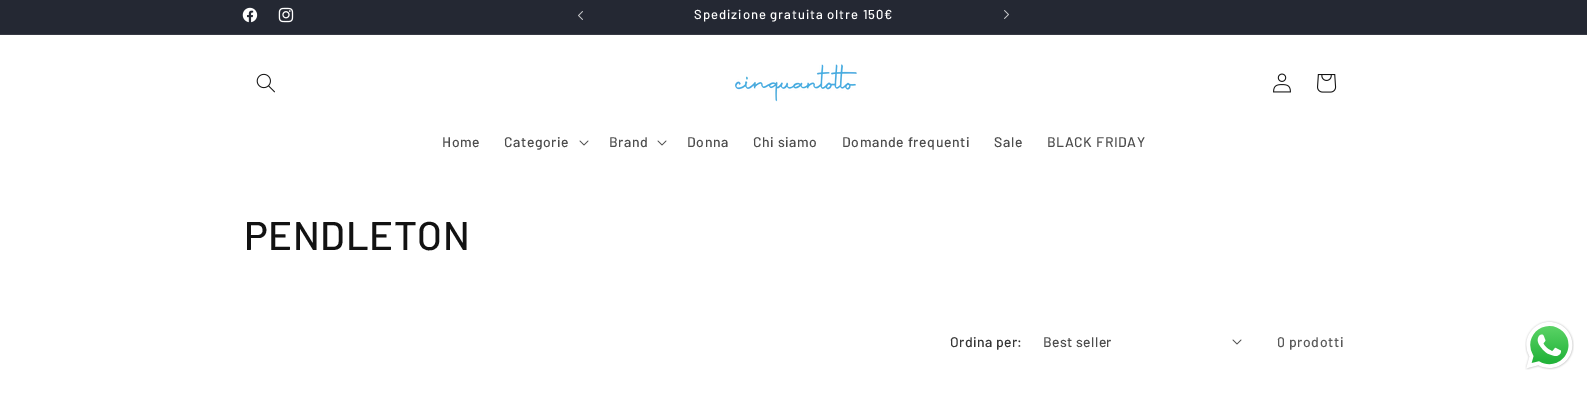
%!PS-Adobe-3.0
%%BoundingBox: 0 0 1587 420
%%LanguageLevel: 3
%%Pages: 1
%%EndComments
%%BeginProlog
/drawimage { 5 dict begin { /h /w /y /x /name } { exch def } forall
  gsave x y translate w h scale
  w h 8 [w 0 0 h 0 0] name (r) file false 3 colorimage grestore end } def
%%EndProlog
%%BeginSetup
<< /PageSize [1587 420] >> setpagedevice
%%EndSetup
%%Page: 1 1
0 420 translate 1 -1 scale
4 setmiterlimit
1 setgray
0 0 1587 420 rectfill
0.141 0.157 0.2 setrgbcolor
0 0 1587 34 rectfill
0.212 0.224 0.263 setrgbcolor
0 34 1587 1 rectfill
(images/1.raw) 242 7 16 16 drawimage
(images/2.raw) 278 7 16 16 drawimage
(images/3.raw) 578 11 5 9 drawimage
(images/4.raw) 1004 10 5 9 drawimage
(images/5.raw) 256 73 19 20 drawimage
(images/6.raw) 735 64 122 38 drawimage
(images/7.raw) 1273 73 18 20 drawimage
(images/8.raw) 1317 74 20 19 drawimage
(images/9.raw) 579 140 10 6 drawimage
(images/9.raw) 657 140 10 6 drawimage
(images/9.raw) 1232 339 10 6 drawimage
(images/10.raw) 1525 320 49 50 drawimage
/Barlow-Medium [13 0 0 -13 0 0] selectfont
1 setgray
694 19 moveto 1 0 (Spedizione gratuita oltre 150€) ashow
/Barlow-Medium [14 0 0 -14 0 0] selectfont
0.302 setgray
442 147 moveto 0.6 0 (Home) ashow
504 147 moveto 0.6 0 (Categorie) ashow
609 147 moveto 0.6 0 (Brand) ashow
687 147 moveto 0.6 0 (Donna) ashow
753 147 moveto 0.6 0 (Chi siamo) ashow
842 147 moveto 0.6 0 (Domande frequenti) ashow
994 147 moveto 0.6 0 (Sale) ashow
1047 147 moveto 0.6 0 (BLACK FRIDAY) ashow
/Barlow-Medium [40 0 0 -40 0 0] selectfont
0.071 setgray
244 250 moveto 0.6 0 (PENDLETON) ashow
/Barlow-Medium [14 0 0 -14 0 0] selectfont
0.212 setgray
950 347 moveto 0.4 0 (Ordina per:) ashow
0.302 setgray
1043 347 moveto 0.4 0 (Best seller) ashow
0.349 setgray
1277 347 moveto 0.6 0 (0 prodotti) ashow
showpage
%%EOF
